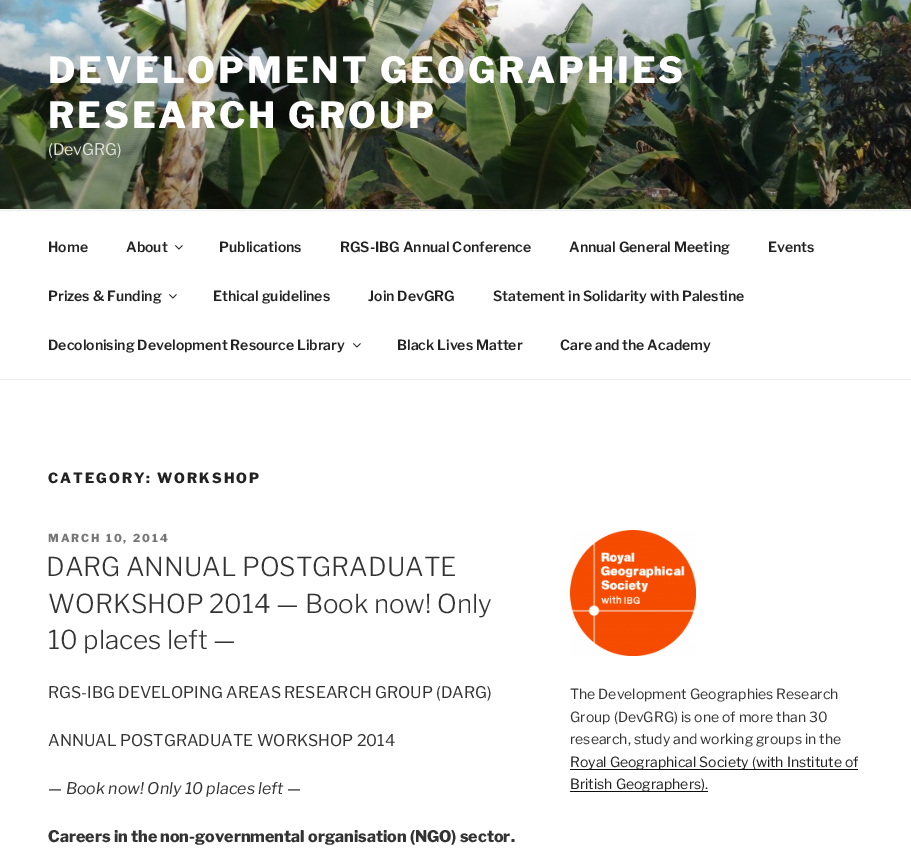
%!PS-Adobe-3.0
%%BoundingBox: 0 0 911 860
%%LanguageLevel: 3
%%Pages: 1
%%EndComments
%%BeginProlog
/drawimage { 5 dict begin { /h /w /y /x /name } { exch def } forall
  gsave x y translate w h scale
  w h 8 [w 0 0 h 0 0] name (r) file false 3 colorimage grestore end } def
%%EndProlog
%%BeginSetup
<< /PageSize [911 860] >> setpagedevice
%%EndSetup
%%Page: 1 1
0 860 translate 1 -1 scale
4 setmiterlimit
1 setgray
0 0 911 860 rectfill
0.98 setgray
0 209 911 1 rectfill
(images/1.raw) 0 0 911 209 drawimage
0.933 setgray
0 210 911 1 rectfill
0 379 911 1 rectfill
(images/2.raw) 175 245 8 5 drawimage
(images/2.raw) 169 294 8 5 drawimage
(images/2.raw) 353 343 8 5 drawimage
(images/3.raw) 570 530 126 126 drawimage
0.059 setgray
570 769 288 1 rectfill
570 791 138 1 rectfill
/LibreFranklin-Thin [36 0 0 -36 0 0] selectfont
1 setgray
48 83 moveto 2.9 0 (DEVELOPMENT GEOGRAPHIES) ashow
48 128 moveto 2.9 0 (RESEARCH GROUP) ashow
/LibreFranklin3-Thin [16 0 0 -16 0 0] selectfont
0.867 0.875 0.859 setrgbcolor
48 155 moveto (\(DevGRG\)) show
/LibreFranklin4-Thin [14 0 0 -14 0 0] selectfont
0.133 setgray
48 252 moveto (Home) show
126 252 moveto (About) show
219 252 moveto (Publications) show
340 252 moveto (RGS-IBG Annual Conference) show
569 252 moveto (Annual General Meeting) show
768 252 moveto (Events) show
48 301 moveto (Prizes & Funding) show
213 301 moveto (Ethical guidelines) show
368 301 moveto (Join DevGRG) show
493 301 moveto (Statement in Solidarity with Palestine) show
48 350 moveto (Decolonising Development Resource Library) show
397 350 moveto (Black Lives Matter) show
560 350 moveto (Care and the Academy) show
/LibreFranklin-Thin [14 0 0 -14 0 0] selectfont
48 483 moveto 2 0 (CATEGORY: WORKSHOP) ashow
/LibreFranklin-Thin [11 0 0 -11 0 0] selectfont
0.463 setgray
48 542 moveto 2 0 (MARCH 10, 2014) ashow
/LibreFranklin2-Thin [26 0 0 -26 0 0] selectfont
0.2 setgray
46 576 moveto (DARG ANNUAL POSTGRADUATE) show
48 613 moveto (WORKSHOP 2014 — Book now! Only) show
48 649 moveto (10 places left —) show
/LibreFranklin3-Thin [16 0 0 -16 0 0] selectfont
48 698 moveto (RGS-IBG DEVELOPING AREAS RESEARCH GROUP \(DARG\)) show
48 746 moveto (ANNUAL POSTGRADUATE WORKSHOP 2014) show
/LibreFranklin-ThinItalic [16 0 0 -16 0 0] selectfont
48 794 moveto (— Book now! Only 10 places left —) show
/LibreFranklin-Thin [16 0 0 -16 0 0] selectfont
48 842 moveto (Careers in the non-governmental organisation \(NGO\) sector.) show
/LibreFranklin3-Thin [14 0 0 -14 0 0] selectfont
570 699 moveto (The Development Geographies Research) show
570 722 moveto (Group \(DevGRG\) is one of more than 30) show
570 744 moveto (research, study and working groups in the) show
0.133 setgray
570 767 moveto (Royal Geographical Society \(with Institute of) show
570 789 moveto (British Geographers\).) show
showpage
%%EOF
